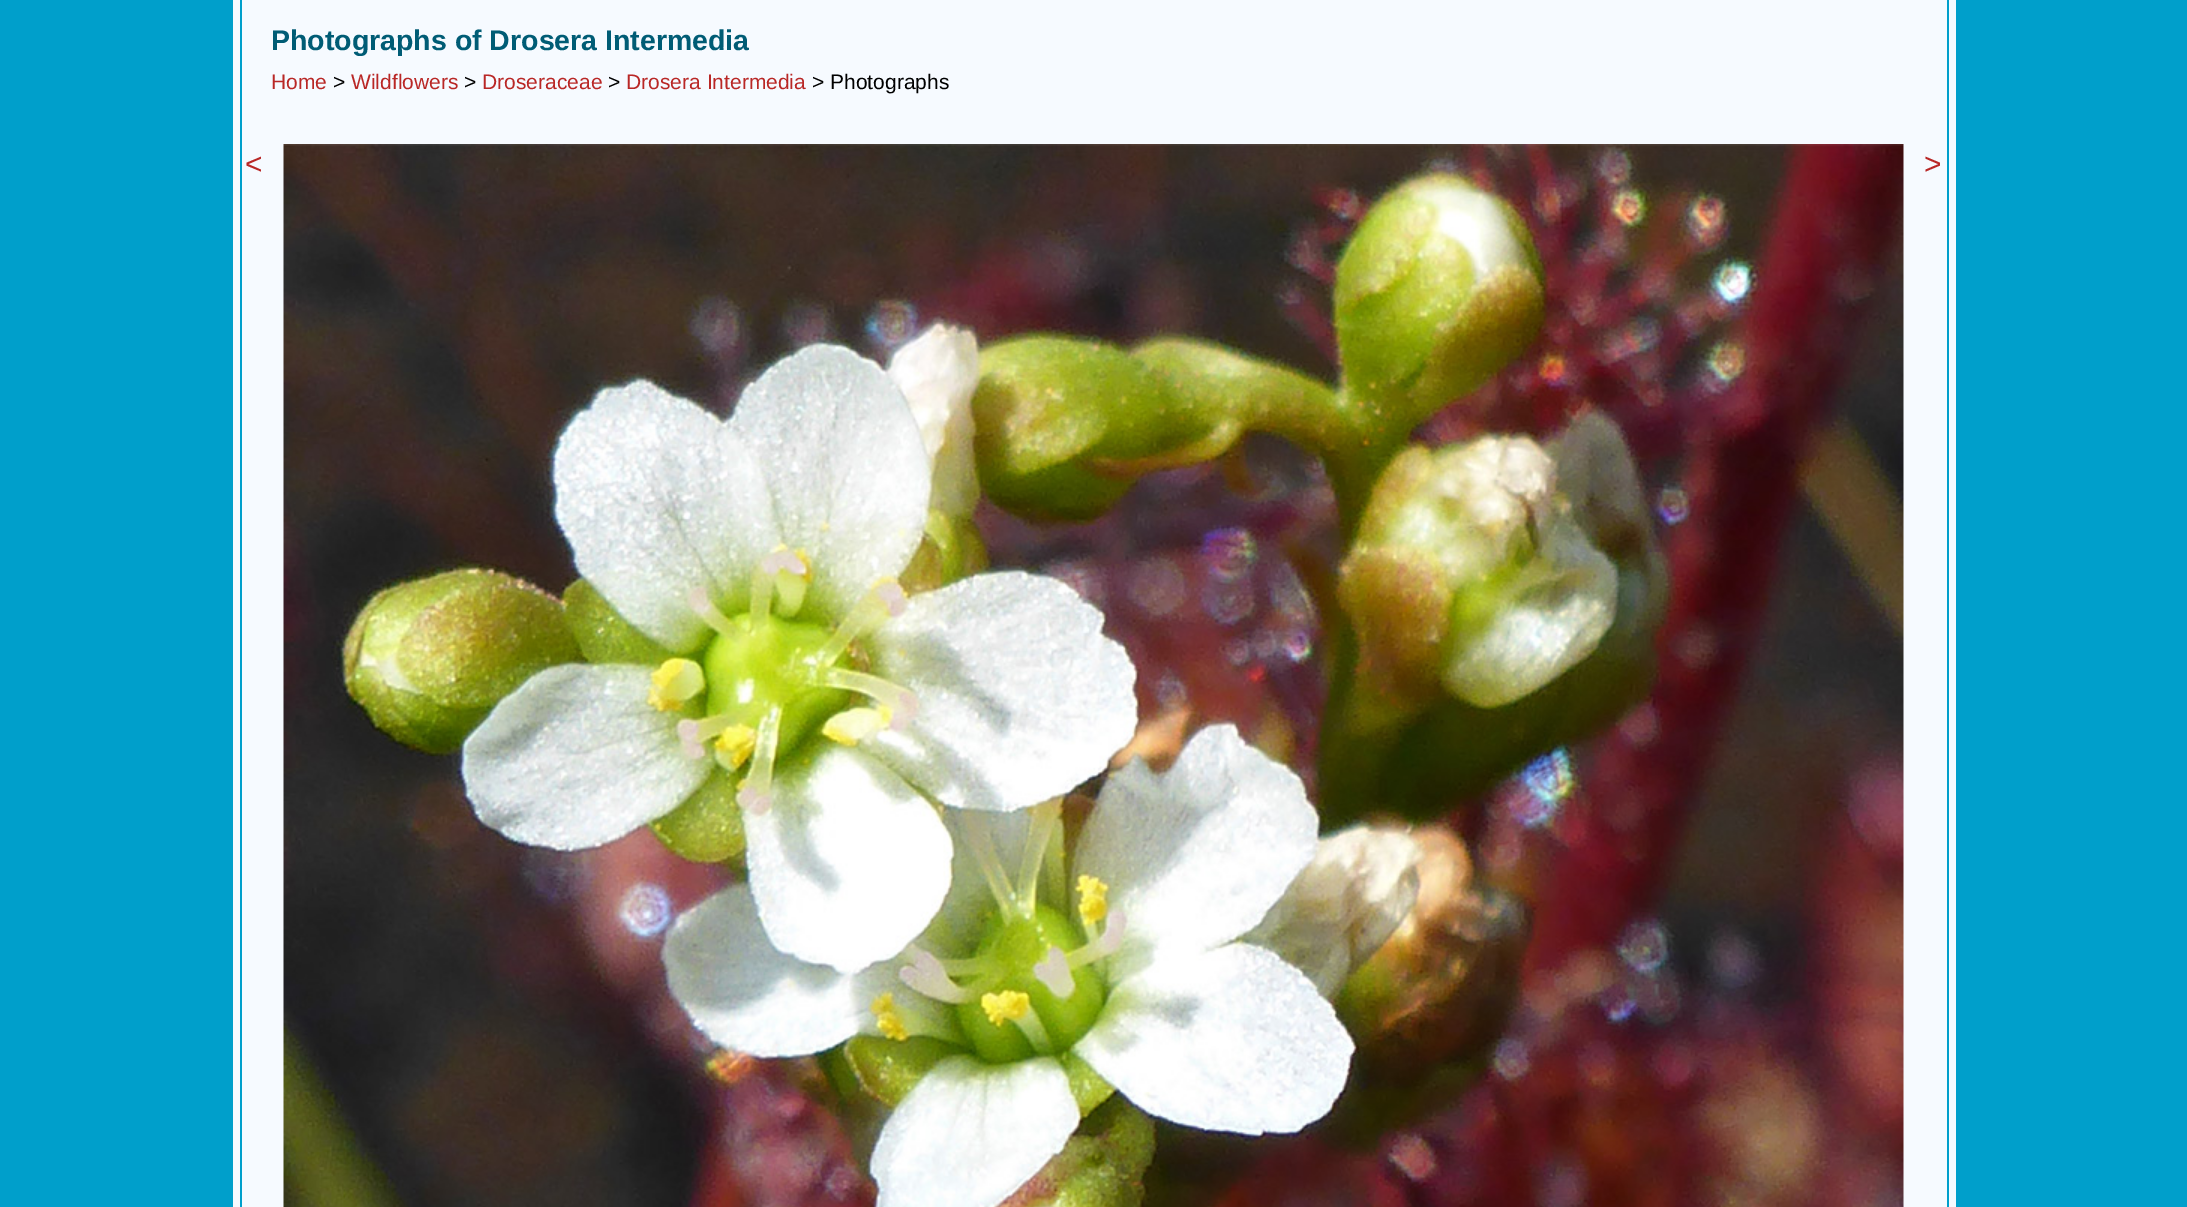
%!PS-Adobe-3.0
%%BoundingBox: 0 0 2187 1207
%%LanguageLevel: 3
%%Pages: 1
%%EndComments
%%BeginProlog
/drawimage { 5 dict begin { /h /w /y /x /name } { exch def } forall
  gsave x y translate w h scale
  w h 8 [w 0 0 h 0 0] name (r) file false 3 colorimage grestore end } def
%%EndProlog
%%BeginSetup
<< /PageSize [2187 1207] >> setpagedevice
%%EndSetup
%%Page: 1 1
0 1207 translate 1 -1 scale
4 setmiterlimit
0 0.624 0.796 setrgbcolor
0 0 2187 1207 rectfill
0.965 0.98 1 setrgbcolor
233 0 1723 1207 rectfill
0 0.624 0.796 setrgbcolor
1947 0 2 1207 rectfill
240 0 2 1207 rectfill
(images/1.raw) 283 144 1621 1063 drawimage
/LiberationSans-Bold [28.5 0 0 -28.5 0 0] selectfont
0 0.361 0.459 setrgbcolor
271 50 moveto (Photographs of Drosera Intermedia) show
/LiberationSans-Regular [21 0 0 -21 0 0] selectfont
0.725 0.153 0.149 setrgbcolor
271 89 moveto (Home) show
0 setgray
333 89 moveto (>) show
0.725 0.153 0.149 setrgbcolor
351 89 moveto (Wildflowers) show
0 setgray
464 89 moveto (>) show
0.725 0.153 0.149 setrgbcolor
482 89 moveto (Droseraceae) show
0 setgray
608 89 moveto (>) show
0.725 0.153 0.149 setrgbcolor
626 89 moveto (Drosera Intermedia) show
0 setgray
812 89 moveto (> Photographs) show
/LiberationSans-Regular [30 0 0 -30 0 0] selectfont
0.725 0.153 0.149 setrgbcolor
245 174 moveto (<) show
1924 174 moveto (>) show
showpage
%%EOF
